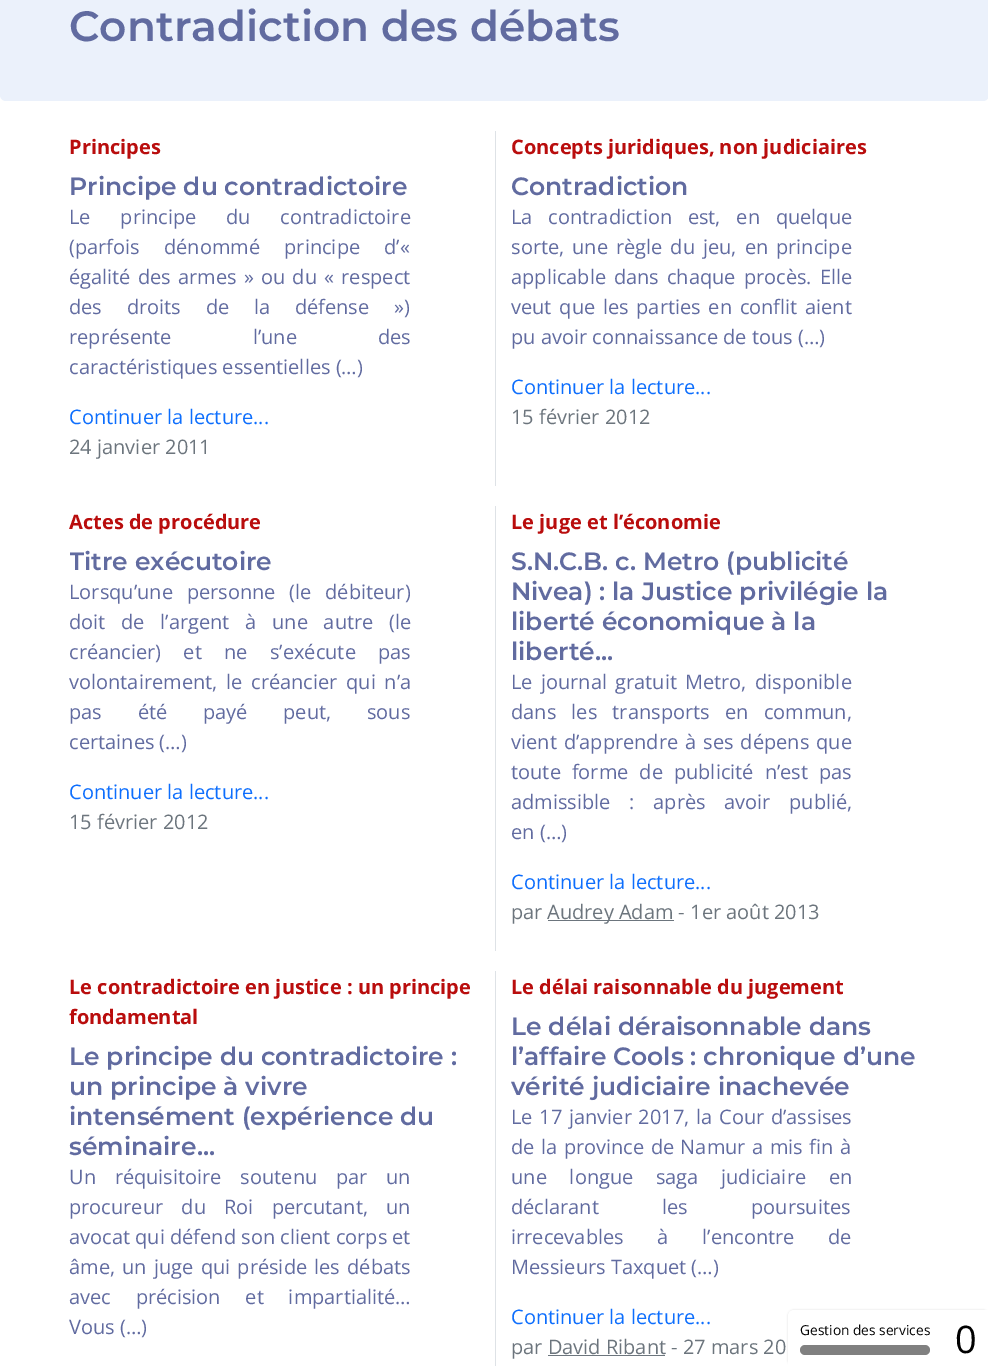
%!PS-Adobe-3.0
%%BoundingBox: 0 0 988 1366
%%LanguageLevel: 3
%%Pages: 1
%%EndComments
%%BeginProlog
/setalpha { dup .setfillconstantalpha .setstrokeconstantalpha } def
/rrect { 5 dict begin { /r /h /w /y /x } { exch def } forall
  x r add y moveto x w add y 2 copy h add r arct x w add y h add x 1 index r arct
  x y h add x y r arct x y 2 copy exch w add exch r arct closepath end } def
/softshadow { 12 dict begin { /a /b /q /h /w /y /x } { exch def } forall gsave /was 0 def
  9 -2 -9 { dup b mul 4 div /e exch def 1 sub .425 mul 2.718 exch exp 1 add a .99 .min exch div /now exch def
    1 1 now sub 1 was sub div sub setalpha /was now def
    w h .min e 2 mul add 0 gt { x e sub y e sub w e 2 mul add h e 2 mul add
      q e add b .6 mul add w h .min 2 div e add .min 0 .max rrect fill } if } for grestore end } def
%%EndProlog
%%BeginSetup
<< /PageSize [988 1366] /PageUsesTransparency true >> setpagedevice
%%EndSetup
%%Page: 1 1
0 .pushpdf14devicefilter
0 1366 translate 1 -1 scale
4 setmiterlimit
1 setgray
0 0 988 1366 rectfill
0.922 0.945 0.984 setrgbcolor
0 -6 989 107 6 rrect fill
0.871 0.886 0.902 setrgbcolor
495 131 1 355 rectfill
495 506 1 445 rectfill
0.424 0.459 0.49 setrgbcolor
548 920 126 1 rectfill
0.871 0.886 0.902 setrgbcolor
495 971 1 395 rectfill
0.424 0.459 0.49 setrgbcolor
548 1355 117 1 rectfill
0.867 setgray
788 1310 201 56 6 1 1 softshadow
1 setgray
newpath 794 1310 moveto 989 1310 lineto 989 1366 lineto 788 1366 lineto 788 1316 lineto 788 1312.5 790.5 1310 794 1310 curveto closepath fill
0.502 setgray
800 1345 130 10 5 rrect fill
/Montserrat-SemiBold [42.3 0 0 -42.3 0 0] selectfont
0.38 0.42 0.627 setrgbcolor
69 41 moveto (Contradiction des débats) show
/OpenSans-Bold [20 0 0 -20 0 0] selectfont
0.725 0.051 0.051 setrgbcolor
69 154 moveto (Principes) show
/Montserrat-SemiBold [25 0 0 -25 0 0] selectfont
0.38 0.42 0.627 setrgbcolor
69 195 moveto (Principe du contradictoire) show
/OpenSans-Regular [20 0 0 -20 0 0] selectfont
69 224 moveto 24.5 0 32 (Le principe du contradictoire) widthshow
69 254 moveto 19 0 32 (\(parfois dénommé principe d’«) widthshow
69 284 moveto 2 0 32 (égalité des armes » ou du « respect) widthshow
69 314 moveto 19.5 0 32 (des droits de la défense »\)) widthshow
69 344 moveto 76 0 32 (représente l’une des) widthshow
69 374 moveto (caractéristiques essentielles \(…\)) show
0.051 0.431 0.992 setrgbcolor
69 424 moveto (Continuer la lecture...) show
0.424 0.459 0.49 setrgbcolor
69 454 moveto (24 janvier 2011) show
/OpenSans-Bold [20 0 0 -20 0 0] selectfont
0.725 0.051 0.051 setrgbcolor
511 154 moveto (Concepts juridiques, non judiciaires) show
/Montserrat-SemiBold [25 0 0 -25 0 0] selectfont
0.38 0.42 0.627 setrgbcolor
511 195 moveto (Contradiction) show
/OpenSans-Regular [20 0 0 -20 0 0] selectfont
511 224 moveto 10.5 0 32 (La contradiction est, en quelque) widthshow
511 254 moveto 2.75 0 32 (sorte, une règle du jeu, en principe) widthshow
511 284 moveto 2.75 0 32 (applicable dans chaque procès. Elle) widthshow
511 314 moveto 2.5 0 32 (veut que les parties en conflit aient) widthshow
511 344 moveto (pu avoir connaissance de tous \(…\)) show
0.051 0.431 0.992 setrgbcolor
511 394 moveto (Continuer la lecture...) show
0.424 0.459 0.49 setrgbcolor
511 424 moveto (15 février 2012) show
/OpenSans-Bold [20 0 0 -20 0 0] selectfont
0.725 0.051 0.051 setrgbcolor
69 529 moveto (Actes de procédure) show
gsave
70 506 410 355 rectclip
/Montserrat-SemiBold [25 0 0 -25 0 0] selectfont
0.38 0.42 0.627 setrgbcolor
69 570 moveto (Titre exécutoire) show
grestore
/OpenSans-Regular [20 0 0 -20 0 0] selectfont
0.38 0.42 0.627 setrgbcolor
69 599 moveto 8.5 0 32 (Lorsqu’une personne \(le débiteur\)) widthshow
69 629 moveto 10.5 0 32 (doit de l’argent à une autre \(le) widthshow
69 659 moveto 17 0 32 (créancier\) et ne s’exécute pas) widthshow
69 689 moveto 3.5 0 32 (volontairement, le créancier qui n’a) widthshow
69 719 moveto 30.5 0 32 (pas été payé peut, sous) widthshow
69 749 moveto (certaines \(…\)) show
0.051 0.431 0.992 setrgbcolor
69 799 moveto (Continuer la lecture...) show
0.424 0.459 0.49 setrgbcolor
69 829 moveto (15 février 2012) show
/OpenSans-Bold [20 0 0 -20 0 0] selectfont
0.725 0.051 0.051 setrgbcolor
511 529 moveto (Le juge et l’économie) show
/Montserrat-SemiBold [25 0 0 -25 0 0] selectfont
0.38 0.42 0.627 setrgbcolor
511 570 moveto (S.N.C.B. c. Metro \(publicité) show
511 600 moveto (Nivea\) : la Justice privilégie la) show
511 630 moveto (liberté économique à la) show
511 660 moveto (liberté...) show
/OpenSans-Regular [20 0 0 -20 0 0] selectfont
511 689 moveto 3 0 32 (Le journal gratuit Metro, disponible) widthshow
511 719 moveto 10 0 32 (dans les transports en commun,) widthshow
511 749 moveto 1.75 0 32 (vient d’apprendre à ses dépens que) widthshow
511 779 moveto 5.75 0 32 (toute forme de publicité n’est pas) widthshow
511 809 moveto 13.5 0 32 (admissible : après avoir publié,) widthshow
511 839 moveto (en \(…\)) show
0.051 0.431 0.992 setrgbcolor
511 889 moveto (Continuer la lecture...) show
0.424 0.459 0.49 setrgbcolor
511 919 moveto (par) show
547 919 moveto (Audrey Adam - 1er août 2013) show
/OpenSans-Bold [20 0 0 -20 0 0] selectfont
0.725 0.051 0.051 setrgbcolor
69 994 moveto (Le contradictoire en justice : un principe) show
69 1024 moveto (fondamental) show
/Montserrat-SemiBold [25 0 0 -25 0 0] selectfont
0.38 0.42 0.627 setrgbcolor
69 1065 moveto (Le principe du contradictoire :) show
69 1095 moveto (un principe à vivre) show
69 1125 moveto (intensément \(expérience du) show
69 1155 moveto (séminaire...) show
/OpenSans-Regular [20 0 0 -20 0 0] selectfont
69 1184 moveto 13.5 0 32 (Un réquisitoire soutenu par un) widthshow
69 1214 moveto 13 0 32 (procureur du Roi percutant, un) widthshow
69 1244 moveto (avocat qui défend son client corps et) show
69 1274 moveto 2 0 32 (âme, un juge qui préside les débats) widthshow
69 1304 moveto 19.5 0 32 (avec précision et impartialité…) widthshow
69 1334 moveto (Vous \(…\)) show
/OpenSans-Bold [20 0 0 -20 0 0] selectfont
0.725 0.051 0.051 setrgbcolor
511 994 moveto (Le délai raisonnable du jugement) show
/Montserrat-SemiBold [25 0 0 -25 0 0] selectfont
0.38 0.42 0.627 setrgbcolor
511 1035 moveto (Le délai déraisonnable dans) show
511 1065 moveto (l’affaire Cools : chronique d’une) show
511 1095 moveto (vérité judiciaire inachevée) show
/OpenSans-Regular [20 0 0 -20 0 0] selectfont
511 1124 moveto 1.5 0 32 (Le 17 janvier 2017, la Cour d’assises) widthshow
511 1154 moveto 1.25 0 32 (de la province de Namur a mis fin à) widthshow
511 1184 moveto 17.5 0 32 (une longue saga judiciaire en) widthshow
511 1214 moveto 58 0 32 (déclarant les poursuites) widthshow
511 1244 moveto 28.5 0 32 (irrecevables à l’encontre de) widthshow
511 1274 moveto (Messieurs Taxquet \(…\)) show
0.051 0.431 0.992 setrgbcolor
511 1324 moveto (Continuer la lecture...) show
0.424 0.459 0.49 setrgbcolor
511 1354 moveto (par David Ribant - 27 mars 20) show
/OpenSans-Regular [13.75 0 0 -13.75 0 0] selectfont
0 setgray
800 1335 moveto (Gestion des services) show
/OpenSans-Regular [38 0 0 -38 0 0] selectfont
955 1353 moveto (0) show
.poppdf14devicefilter showpage
%%EOF
